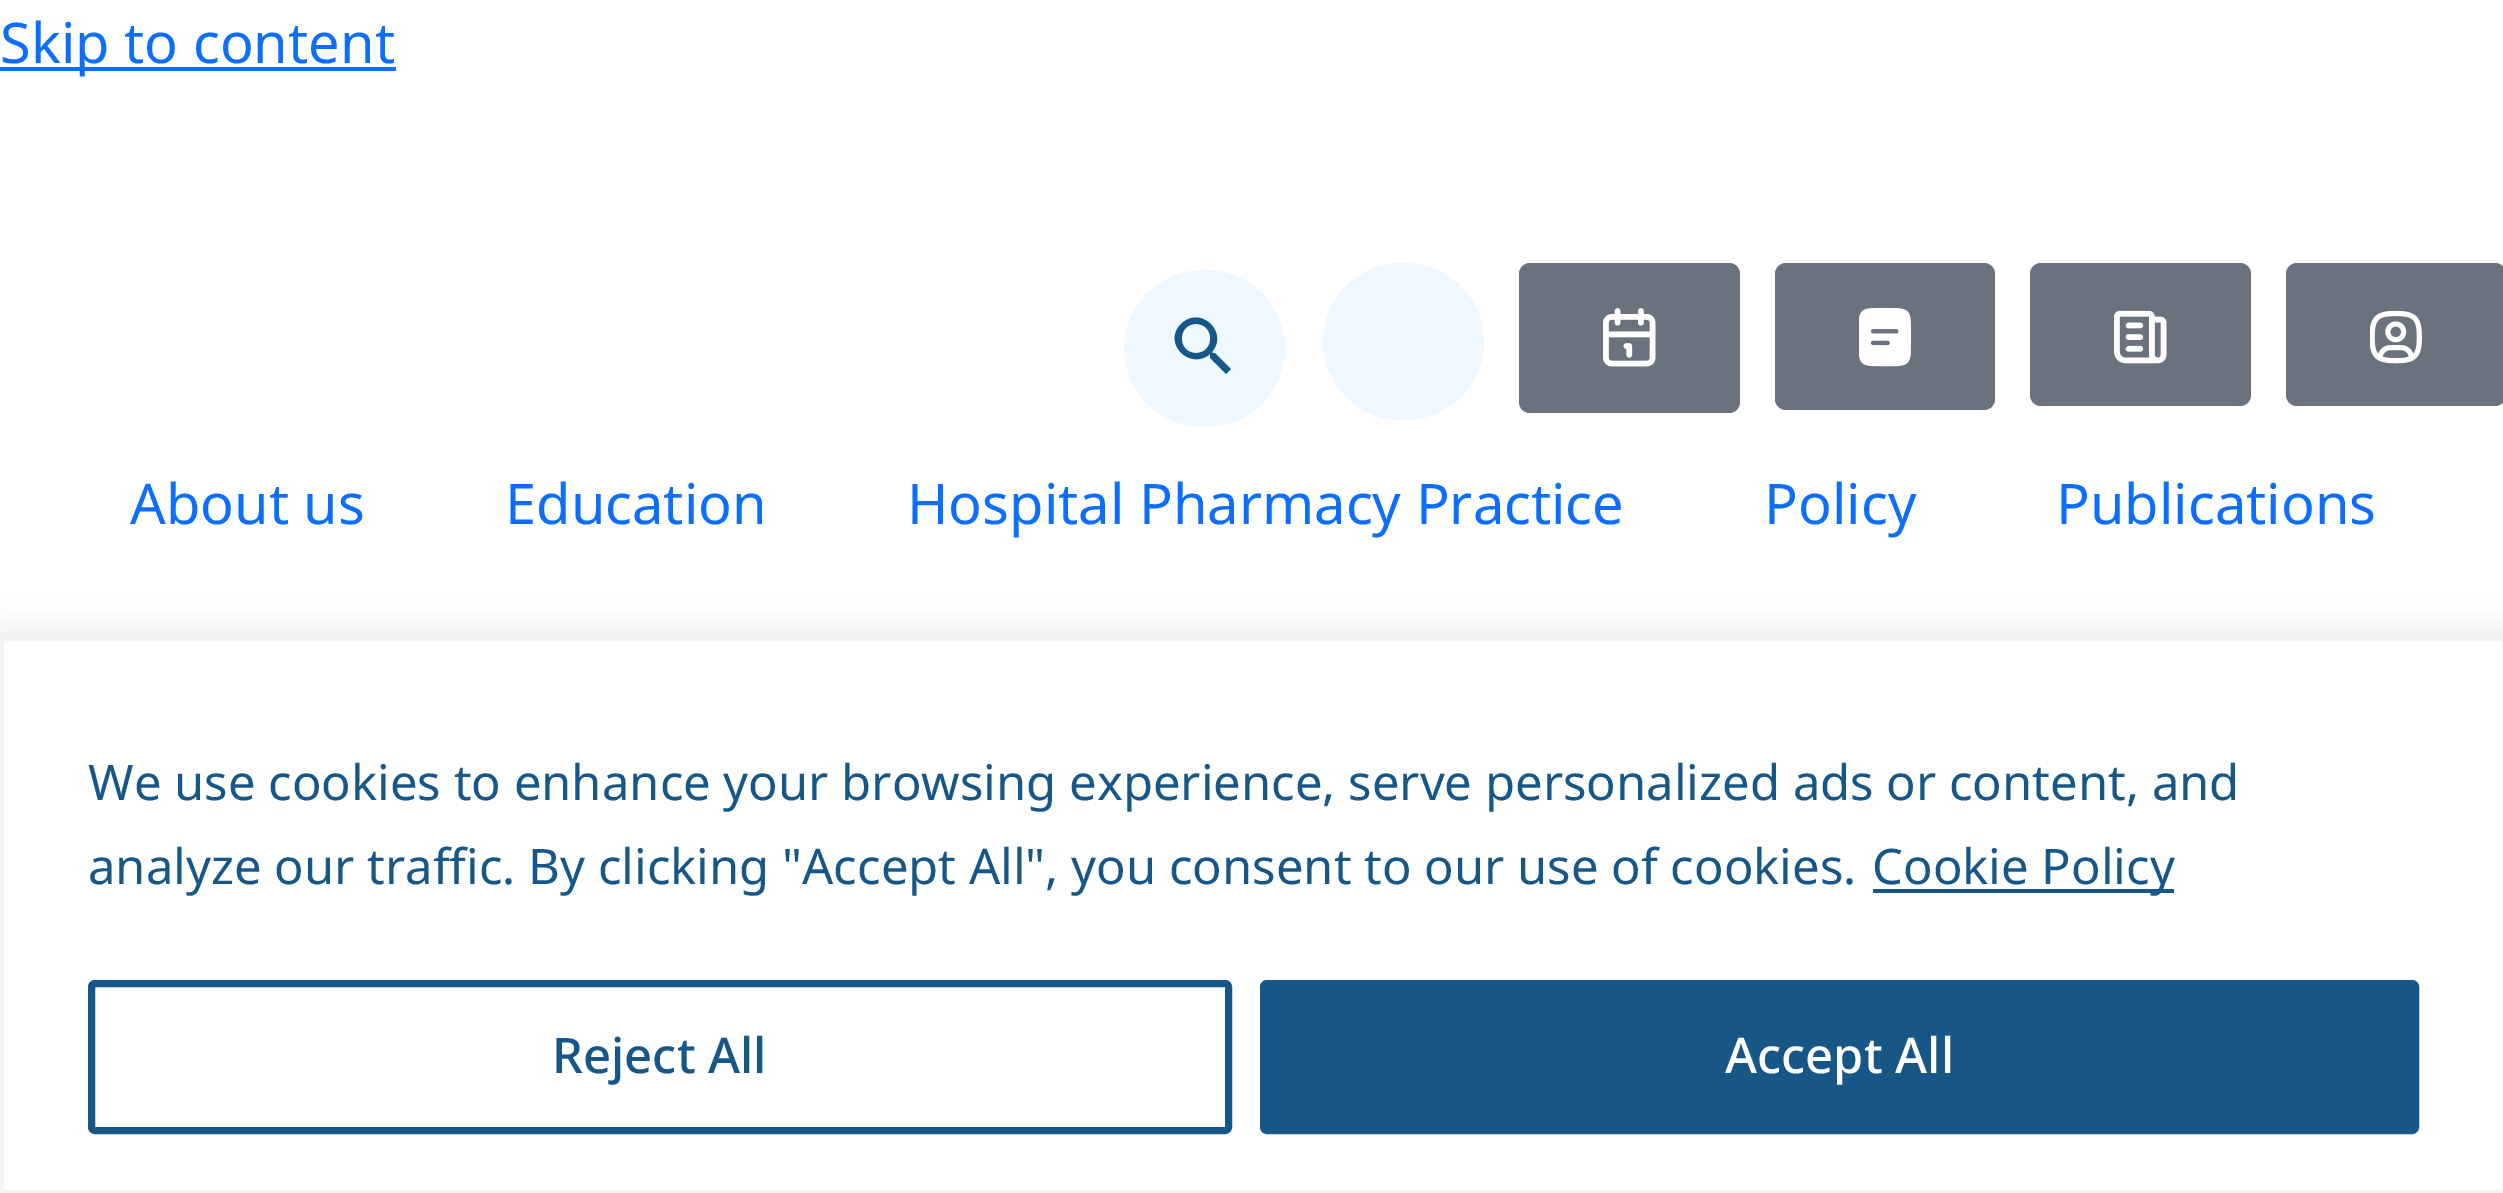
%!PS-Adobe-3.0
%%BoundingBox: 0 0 2503 1193
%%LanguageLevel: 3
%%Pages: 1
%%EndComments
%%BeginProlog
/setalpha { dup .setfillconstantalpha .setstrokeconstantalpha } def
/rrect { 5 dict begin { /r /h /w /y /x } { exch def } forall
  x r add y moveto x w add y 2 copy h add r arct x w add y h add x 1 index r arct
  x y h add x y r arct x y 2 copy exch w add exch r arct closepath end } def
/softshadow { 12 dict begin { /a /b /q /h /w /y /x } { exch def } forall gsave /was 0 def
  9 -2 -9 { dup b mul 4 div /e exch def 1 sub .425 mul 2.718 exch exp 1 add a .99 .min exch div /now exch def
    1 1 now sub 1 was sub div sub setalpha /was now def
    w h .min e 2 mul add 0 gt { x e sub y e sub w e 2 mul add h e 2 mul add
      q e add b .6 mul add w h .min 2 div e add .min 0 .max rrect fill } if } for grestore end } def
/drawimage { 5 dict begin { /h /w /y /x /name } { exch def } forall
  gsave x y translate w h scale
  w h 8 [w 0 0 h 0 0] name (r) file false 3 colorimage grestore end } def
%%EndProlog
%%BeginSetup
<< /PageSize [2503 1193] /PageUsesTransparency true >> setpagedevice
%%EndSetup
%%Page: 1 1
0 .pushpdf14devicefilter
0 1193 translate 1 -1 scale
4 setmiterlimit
1 setgray
0 0 2503 1193 rectfill
0.051 0.431 0.992 setrgbcolor
0 67 396 4 rectfill
0.941 0.973 1 setrgbcolor
1126 272 157 153 76.5 rrect gsave fill grestore
4 setlinewidth
stroke
0.086 0.341 0.533 setrgbcolor
newpath 1215 353 moveto 1213 353 lineto 1212 352 lineto 1229 332 1200 305 1181 324 curveto 1162 343 1190 371 1210 354 curveto 1210 355 lineto 1210 358 lineto 1226 374 lineto 1231 369 lineto closepath 1196 353 moveto 1177 353 1177 324 1196 324 curveto 1215 324 1215 353 1196 353 curveto closepath fill
0.941 0.973 1 setrgbcolor
1323 263 161 157 78.5 rrect fill
0.412 0.447 0.49 setrgbcolor
1519 263 221 150 11 rrect fill
(images/1.raw) 1603 308 53 59 drawimage
1775 263 220 147 11 rrect fill
(images/2.raw) 1859 307 52 60 drawimage
2030 263 221 143 11 rrect fill
(images/3.raw) 2114 310 53 54 drawimage
2286 263 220 143 11 rrect fill
(images/4.raw) 2370 310 52 54 drawimage
0.675 0.671 0.671 setrgbcolor
0 634 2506 556 0 17.5 0.3 softshadow
1 setgray
newpath 2 639 moveto 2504 639 lineto 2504 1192 lineto 2 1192 lineto closepath gsave fill grestore
0.957 setgray
stroke
0.086 0.341 0.533 setrgbcolor
1873 889 301 4 rectfill
7 setlinewidth
91.5 983.5 1137 147 3.5 rrect stroke
1263.5 983.5 1152 147 3.5 rrect gsave fill grestore
stroke
/NotoSans-Regular [56 0 0 -56 0 0] selectfont
0.051 0.431 0.992 setrgbcolor
0 63 moveto (Skip to content) show
130 524 moveto (About us) show
505 524 moveto (Education) show
907 524 moveto (Hospital Pharmacy Practice) show
1764 524 moveto (Policy) show
2056 524 moveto (Publications) show
/NotoSans-Regular [49 0 0 -49 0 0] selectfont
0.086 0.341 0.533 setrgbcolor
88 800 moveto (We use cookies to enhance your browsing experience, serve personalized ads or content, and) show
88 884 moveto (analyze our traffic. By clicking "Accept All", you consent to our use of cookies.) show
1872 884 moveto (Cookie Policy) show
/NotoSans-Medium [49 0 0 -49 0 0] selectfont
552 1073 moveto (Reject All) show
1 setgray
1725 1073 moveto (Accept All) show
.poppdf14devicefilter showpage
%%EOF
